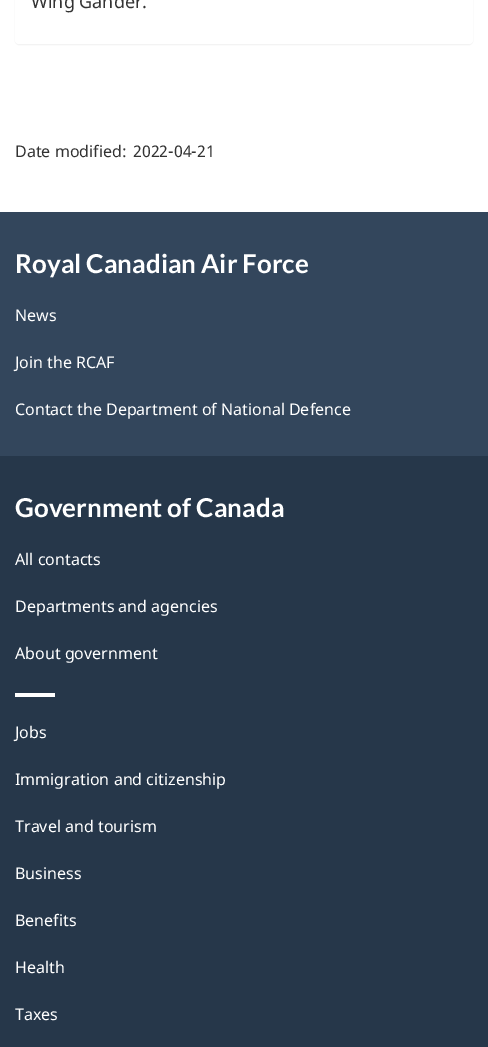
%!PS-Adobe-3.0
%%BoundingBox: 0 0 488 1047
%%LanguageLevel: 3
%%Pages: 1
%%EndComments
%%BeginProlog
/setalpha { dup .setfillconstantalpha .setstrokeconstantalpha } def
/rrect { 5 dict begin { /r /h /w /y /x } { exch def } forall
  x r add y moveto x w add y 2 copy h add r arct x w add y h add x 1 index r arct
  x y h add x y r arct x y 2 copy exch w add exch r arct closepath end } def
/softshadow { 12 dict begin { /a /b /q /h /w /y /x } { exch def } forall gsave /was 0 def
  9 -2 -9 { dup b mul 4 div /e exch def 1 sub .425 mul 2.718 exch exp 1 add a .99 .min exch div /now exch def
    1 1 now sub 1 was sub div sub setalpha /was now def
    w h .min e 2 mul add 0 gt { x e sub y e sub w e 2 mul add h e 2 mul add
      q e add b .6 mul add w h .min 2 div e add .min 0 .max rrect fill } if } for grestore end } def
%%EndProlog
%%BeginSetup
<< /PageSize [488 1047] /PageUsesTransparency true >> setpagedevice
%%EndSetup
%%Page: 1 1
0 .pushpdf14devicefilter
0 1047 translate 1 -1 scale
4 setmiterlimit
1 setgray
0 0 488 1047 rectfill
0 setgray
15 -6 458 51 4 0.5 0.05 softshadow
1 setgray
15 -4 458 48 4 rrect fill
0.2 0.275 0.361 setrgbcolor
0 212 488 244 rectfill
0.149 0.216 0.29 setrgbcolor
0 456 488 591 rectfill
1 setgray
15 693 40 4 rectfill
/NotoSans-Regular [18 0 0 -18 0 0] selectfont
0.2 setgray
31 8 moveto (Wing Gander.) show
/NotoSans-Regular [16 0 0 -16 0 0] selectfont
15 157 moveto (Date modified:) show
133 157 moveto (2022-04-21) show
/Lato-Bold [26 0 0 -26 0 0] selectfont
1 setgray
15 273 moveto (Royal Canadian Air Force) show
/NotoSans-Regular [16 0 0 -16 0 0] selectfont
15 321 moveto (News) show
15 368 moveto (Join the RCAF) show
15 415 moveto (Contact the Department of National Defence) show
/Lato-Bold [26 0 0 -26 0 0] selectfont
15 517 moveto (Government of Canada) show
/NotoSans-Regular [16 0 0 -16 0 0] selectfont
15 565 moveto (All contacts) show
15 612 moveto (Departments and agencies) show
15 659 moveto (About government) show
15 738 moveto (Jobs) show
15 785 moveto (Immigration and citizenship) show
15 832 moveto (Travel and tourism) show
15 879 moveto (Business) show
15 926 moveto (Benefits) show
15 973 moveto (Health) show
15 1020 moveto (Taxes) show
.poppdf14devicefilter showpage
%%EOF
